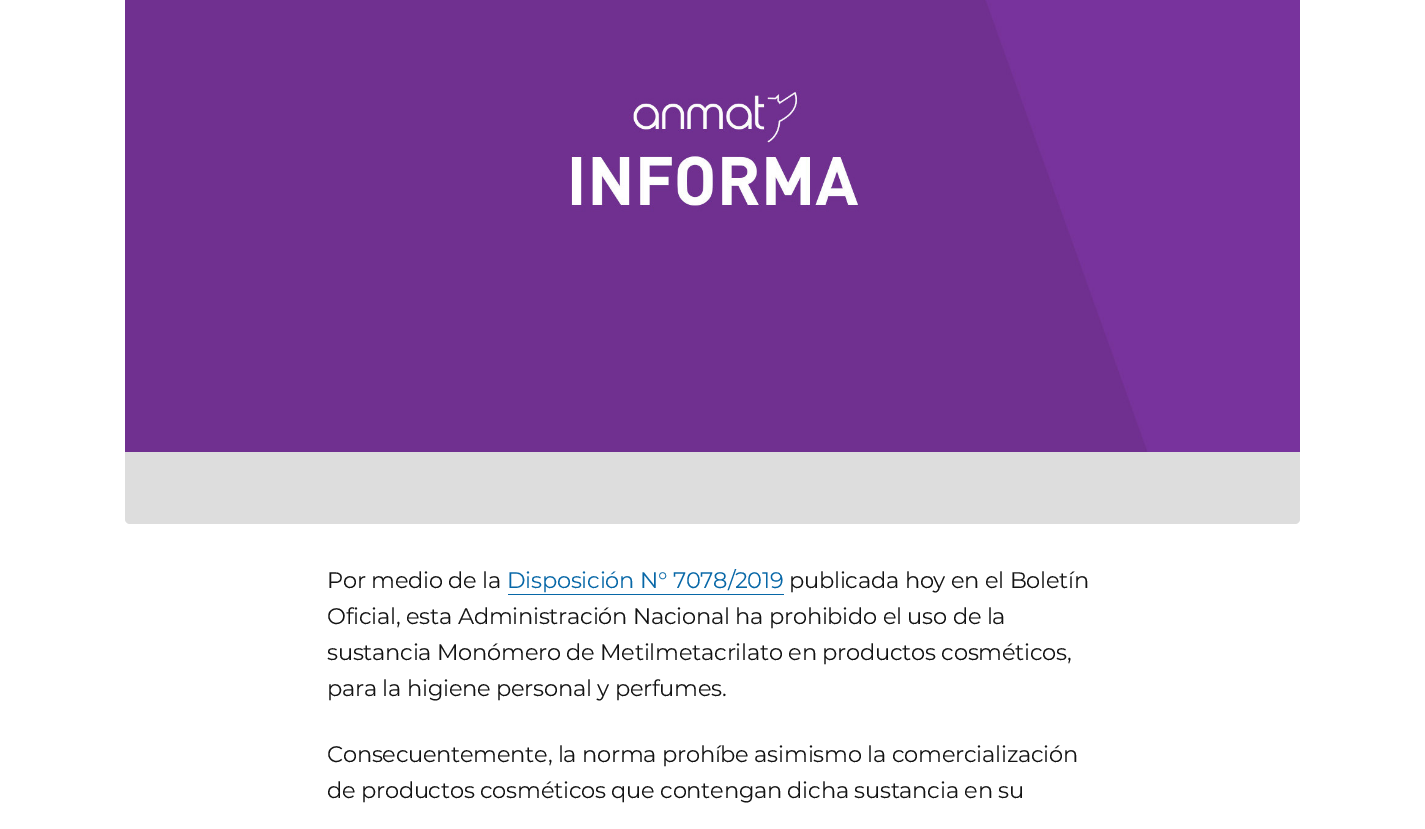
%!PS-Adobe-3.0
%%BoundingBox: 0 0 1425 829
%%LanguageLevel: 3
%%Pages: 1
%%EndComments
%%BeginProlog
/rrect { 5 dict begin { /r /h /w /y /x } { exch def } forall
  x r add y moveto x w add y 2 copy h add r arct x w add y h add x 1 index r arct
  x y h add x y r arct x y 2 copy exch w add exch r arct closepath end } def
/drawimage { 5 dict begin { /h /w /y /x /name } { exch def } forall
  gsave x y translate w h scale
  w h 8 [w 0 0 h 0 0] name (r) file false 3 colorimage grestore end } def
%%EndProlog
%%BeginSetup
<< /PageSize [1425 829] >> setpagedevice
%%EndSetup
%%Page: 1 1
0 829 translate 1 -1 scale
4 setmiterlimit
1 setgray
0 0 1425 829 rectfill
0.867 setgray
125 -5 1175 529 5 rrect fill
(images/1.raw) 125 0 1175 452 drawimage
0.027 0.404 0.655 setrgbcolor
508 594 276 1 rectfill
/Montserrat-Regular [22.5 0 0 -22.5 0 0] selectfont
0.078 setgray
327 588 moveto -0.25 0 (Por medio de la) ashow
0.027 0.404 0.655 setrgbcolor
507 588 moveto -0.25 0 (Disposición N° 7078/2019) ashow
0.078 setgray
789 588 moveto -0.25 0 (publicada hoy en el Boletín) ashow
327 624 moveto -0.25 0 (Oficial, esta Administración Nacional ha prohibido el uso de la) ashow
327 660 moveto -0.25 0 (sustancia Monómero de Metilmetacrilato en productos cosméticos,) ashow
327 696 moveto -0.25 0 (para la higiene personal y perfumes.) ashow
327 762 moveto -0.25 0 (Consecuentemente, la norma prohíbe asimismo la comercialización) ashow
327 798 moveto -0.25 0 (de productos cosméticos que contengan dicha sustancia en su) ashow
showpage
%%EOF
